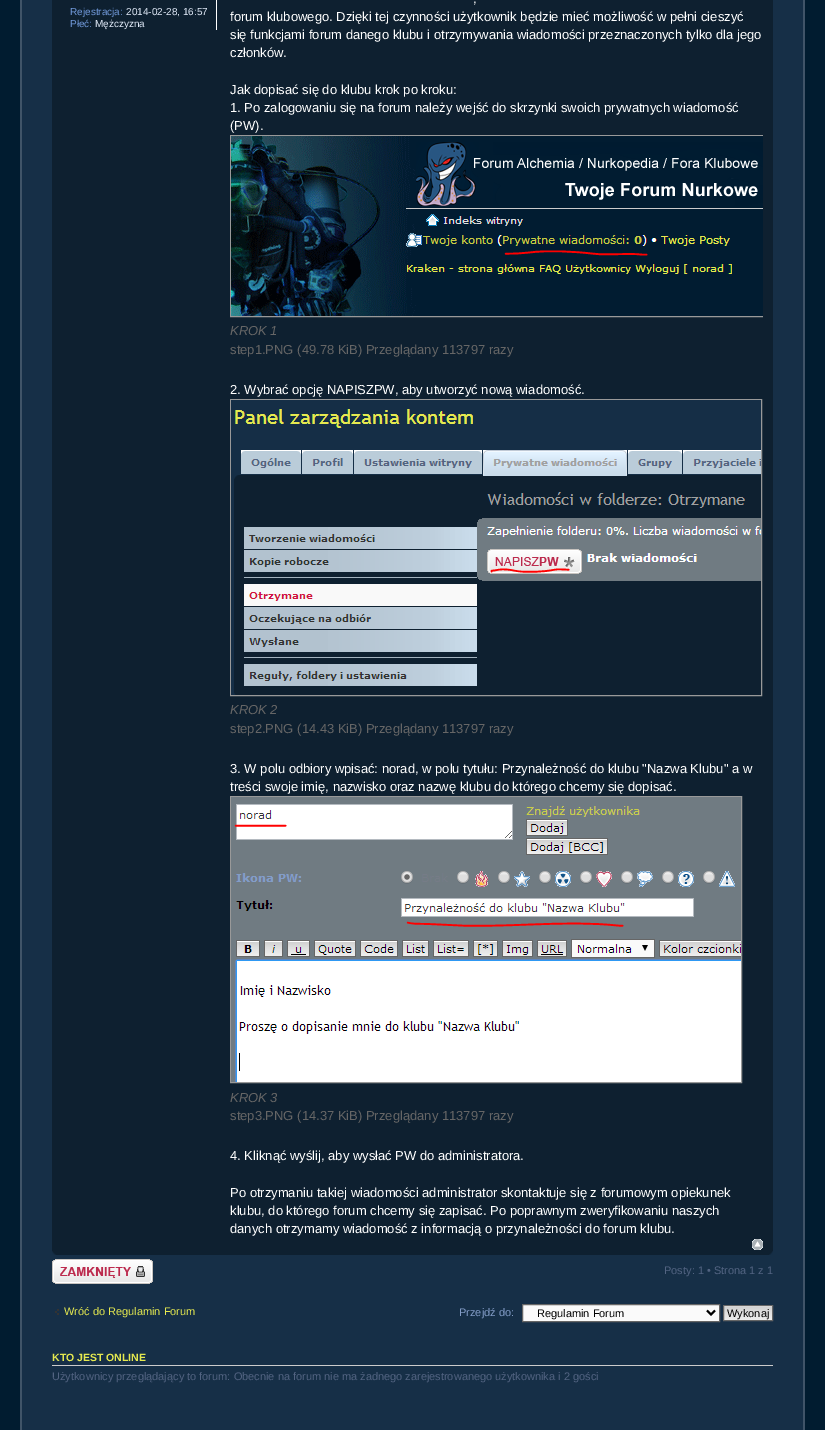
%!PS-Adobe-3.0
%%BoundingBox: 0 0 825 1430
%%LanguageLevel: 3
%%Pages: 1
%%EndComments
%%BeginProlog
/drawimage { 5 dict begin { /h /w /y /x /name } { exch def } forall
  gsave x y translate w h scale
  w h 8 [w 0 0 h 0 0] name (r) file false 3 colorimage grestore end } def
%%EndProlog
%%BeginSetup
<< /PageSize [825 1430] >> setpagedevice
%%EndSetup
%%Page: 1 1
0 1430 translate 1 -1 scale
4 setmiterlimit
0.004 0.11 0.188 setrgbcolor
0 0 825 1430 rectfill
0.086 0.184 0.278 setrgbcolor
22 0 781 1430 rectfill
0.251 0.329 0.408 setrgbcolor
newpath 805 -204 moveto 805 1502 lineto 803 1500 lineto 803 -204 lineto closepath fill
newpath 20 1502 moveto 20 -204 lineto 22 -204 lineto 22 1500 lineto closepath fill
0.055 0.125 0.188 setrgbcolor
52 0 721 1255 rectfill
1 setgray
216 0 1 30 rectfill
gsave
230 135 533 187 rectclip
0.6 setgray
230.5 135.5 548 181 rectstroke
grestore
(images/1.raw) 231 136 532 180 drawimage
0.6 setgray
230.5 399.5 531 296 rectstroke
(images/2.raw) 231 400 530 295 drawimage
230.5 796.5 511 286 rectstroke
(images/3.raw) 231 797 510 285 drawimage
(images/4.raw) 752 1239 11 11 drawimage
(images/5.raw) 52 1251 4 4 drawimage
(images/6.raw) 769 1251 4 4 drawimage
(images/7.raw) 52 1259 101 25 drawimage
(images/8.raw) 55 1309 4 6 drawimage
0.98 setgray
newpath 522.5 1304.5 moveto 719.5 1304.5 lineto 719.5 1321.5 lineto 522.5 1321.5 lineto closepath gsave fill grestore
0.4 setgray
stroke
0 setgray
2 setlinewidth
newpath 707 1310.5 moveto 711 1314.5 lineto 715 1310.5 lineto stroke
(images/9.raw) 724 1306 48 14 drawimage
0.4 setgray
1 setlinewidth
723.5 1305.5 49 15 rectstroke
0.8 setgray
52 1365 721 1 rectfill
/LiberationSans-Regular [10 0 0 -10 0 0] selectfont
0.451 0.612 0.871 setrgbcolor
70 15 moveto (Rejestracja:) show
0.89 0.925 0.98 setrgbcolor
126 15 moveto (2014-02-28, 16:57) show
0.451 0.612 0.871 setrgbcolor
70 27 moveto (Płeć:) show
0.89 0.925 0.98 setrgbcolor
95 27 moveto (Mężczyzna) show
/LiberationSans-Regular [13 0 0 -13 0 0] selectfont
1 setgray
473 3 moveto (,) show
230 21 moveto (forum klubowego. Dzięki tej czynności użytkownik będzie mieć możliwość w pełni cieszyć) show
230 39 moveto (się funkcjami forum danego klubu i otrzymywania wiadomości przeznaczonych tylko dla jego) show
230 57 moveto (członków.) show
230 94 moveto (Jak dopisać się do klubu krok po kroku:) show
230 112 moveto (1. Po zalogowaniu się na forum należy wejść do skrzynki swoich prywatnych wiadomość) show
230 130 moveto (\(PW\).) show
/LiberationSans-Italic [13 0 0 -13 0 0] selectfont
0.4 setgray
230 335 moveto (KROK 1) show
/LiberationSans-Regular [13 0 0 -13 0 0] selectfont
230 354 moveto (step1.PNG \(49.78 KiB\) Przeglądany 113797 razy) show
1 setgray
230 394 moveto (2. Wybrać opcję NAPISZPW, aby utworzyć nową wiadomość.) show
/LiberationSans-Italic [13 0 0 -13 0 0] selectfont
0.4 setgray
230 714 moveto (KROK 2) show
/LiberationSans-Regular [13 0 0 -13 0 0] selectfont
230 733 moveto (step2.PNG \(14.43 KiB\) Przeglądany 113797 razy) show
1 setgray
230 773 moveto (3. W polu odbiory wpisać: norad, w polu tytułu: Przynależność do klubu "Nazwa Klubu" a w) show
230 791 moveto (treści swoje imię, nazwisko oraz nazwę klubu do którego chcemy się dopisać.) show
/LiberationSans-Italic [13 0 0 -13 0 0] selectfont
0.4 setgray
230 1102 moveto (KROK 3) show
/LiberationSans-Regular [13 0 0 -13 0 0] selectfont
230 1120 moveto (step3.PNG \(14.37 KiB\) Przeglądany 113797 razy) show
1 setgray
230 1160 moveto (4. Kliknąć wyślij, aby wysłać PW do administratora.) show
230 1197 moveto (Po otrzymaniu takiej wiadomości administrator skontaktuje się z forumowym opiekunek) show
230 1215 moveto (klubu, do którego forum chcemy się zapisać. Po poprawnym zweryfikowaniu naszych) show
230 1233 moveto (danych otrzymamy wiadomość z informacją o przynależności do forum klubu.) show
/LiberationSans-Regular [11 0 0 -11 0 0] selectfont
0.325 0.392 0.51 setrgbcolor
664 1274 moveto (Posty: 1 • Strona 1 z 1) show
0.898 0.914 0.314 setrgbcolor
64 1315 moveto (Wróć do Regulamin Forum) show
0.514 0.616 0.78 setrgbcolor
459 1316 moveto (Przejdź do:) show
0 setgray
537 1317 moveto (Regulamin Forum) show
727 1317 moveto (Wykonaj) show
/LiberationSans-Bold [10.5 0 0 -10.5 0 0] selectfont
0.898 0.914 0.314 setrgbcolor
52 1361 moveto (KTO JEST ONLINE) show
/LiberationSans-Regular [11 0 0 -11 0 0] selectfont
0.325 0.392 0.51 setrgbcolor
52 1380 moveto (Użytkownicy przeglądający to forum: Obecnie na forum nie ma żadnego zarejestrowanego użytkownika i 2 gości) show
showpage
%%EOF
